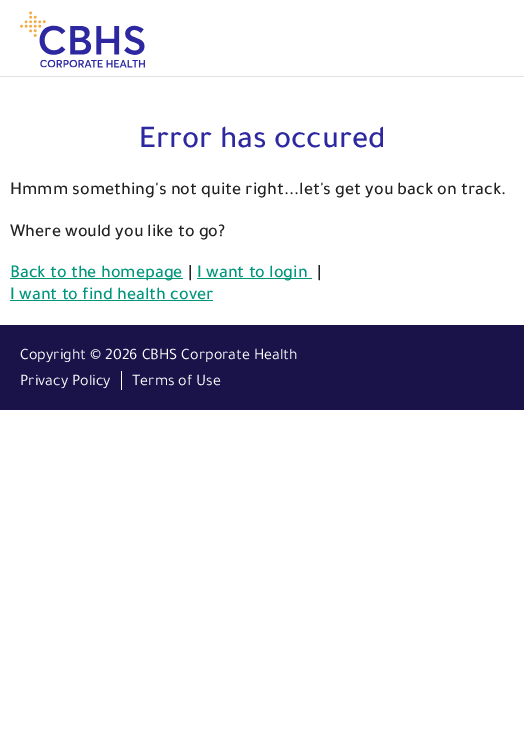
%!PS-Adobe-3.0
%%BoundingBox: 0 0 524 730
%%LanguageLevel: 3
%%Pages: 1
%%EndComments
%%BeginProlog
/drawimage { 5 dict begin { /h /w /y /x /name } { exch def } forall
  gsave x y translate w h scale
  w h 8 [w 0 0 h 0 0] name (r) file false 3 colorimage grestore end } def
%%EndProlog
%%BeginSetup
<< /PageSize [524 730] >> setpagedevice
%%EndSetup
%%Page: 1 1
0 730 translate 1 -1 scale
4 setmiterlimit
1 setgray
0 0 524 730 rectfill
(images/1.raw) 20 11 125 57 drawimage
0.886 setgray
0 76 524 1 rectfill
0 0.588 0.486 setrgbcolor
10 278 173 1 rectfill
197 278 115 1 rectfill
10 300 203 1 rectfill
0.098 0.075 0.29 setrgbcolor
0 325 524 85 rectfill
1 setgray
121 371 1 19 rectfill
/Tajawal-Medium [32 0 0 -32 0 0] selectfont
0.176 0.157 0.627 setrgbcolor
139 147 moveto (Error has occured) show
/Tajawal-Medium [18 0 0 -18 0 0] selectfont
0.133 setgray
10 194 moveto (Hmmm something's not quite right...let's get you back on track.) show
10 236 moveto (Where would you like to go?) show
0 0.588 0.486 setrgbcolor
10 277 moveto (Back to the homepage) show
0.133 setgray
188 277 moveto (|) show
0 0.588 0.486 setrgbcolor
197 277 moveto (I want to login) show
0.133 setgray
317 277 moveto (|) show
0 0.588 0.486 setrgbcolor
10 299 moveto (I want to find health cover) show
/Tajawal-Regular [16 0 0 -16 0 0] selectfont
1 setgray
20 359 moveto (Copyright © 2026 CBHS Corporate Health) show
20 385 moveto (Privacy Policy) show
132 385 moveto (Terms of Use) show
showpage
%%EOF
